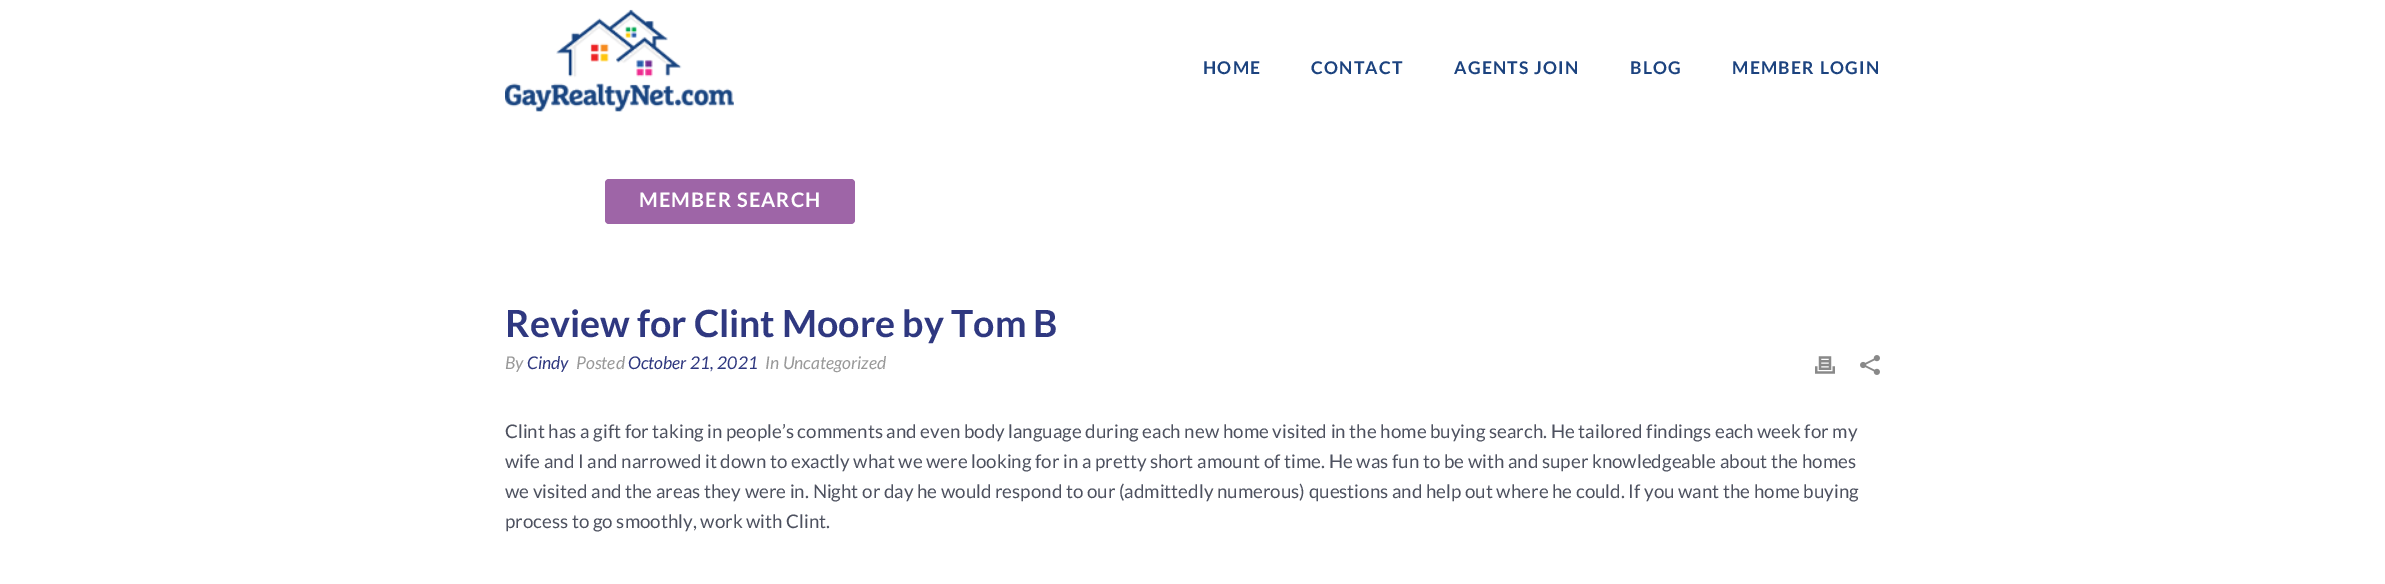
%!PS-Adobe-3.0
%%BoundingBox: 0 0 2385 584
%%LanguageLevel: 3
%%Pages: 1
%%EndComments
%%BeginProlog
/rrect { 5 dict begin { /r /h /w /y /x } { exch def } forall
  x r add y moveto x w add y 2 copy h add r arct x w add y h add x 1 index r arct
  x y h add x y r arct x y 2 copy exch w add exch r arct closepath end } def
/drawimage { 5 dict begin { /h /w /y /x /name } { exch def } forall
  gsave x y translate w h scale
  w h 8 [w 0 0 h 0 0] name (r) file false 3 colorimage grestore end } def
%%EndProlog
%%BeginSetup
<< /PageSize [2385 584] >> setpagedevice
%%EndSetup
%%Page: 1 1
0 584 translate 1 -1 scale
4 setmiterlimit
1 setgray
0 0 2385 584 rectfill
(images/1.raw) 505 9 229 103 drawimage
0.62 0.396 0.655 setrgbcolor
605 179 250 45 4 rrect fill
(images/2.raw) 1815 356 20 18 drawimage
(images/3.raw) 1860 355 20 20 drawimage
/Lato-Bold [17.5 0 0 -17.5 0 0] selectfont
0.11 0.263 0.498 setrgbcolor
1203 74 moveto 1.25 0 (HOME) ashow
1311 74 moveto 1.25 0 (CONTACT) ashow
1454 74 moveto 1.25 0 (AGENTS JOIN) ashow
1630 74 moveto 1.25 0 (BLOG) ashow
1732 74 moveto 1.25 0 (MEMBER LOGIN) ashow
/Lato-Bold [20 0 0 -20 0 0] selectfont
1 setgray
639 207 moveto 1.1 0 (MEMBER SEARCH) ashow
/Lato-Bold [37.5 0 0 -37.5 0 0] selectfont
0.184 0.22 0.502 setrgbcolor
505 337 moveto (Review for Clint Moore by Tom B) show
/Lato-Italic [17.5 0 0 -17.5 0 0] selectfont
0.6 setgray
505 369 moveto (By) show
0.184 0.22 0.502 setrgbcolor
527 369 moveto (Cindy) show
0.6 setgray
576 369 moveto (Posted) show
0.184 0.22 0.502 setrgbcolor
628 369 moveto (October 21, 2021) show
0.6 setgray
765 369 moveto (In Uncategorized) show
/Lato-Regular [18.75 0 0 -18.75 0 0] selectfont
0.302 0.318 0.373 setrgbcolor
505 438 moveto (Clint has a gift for taking in people’s comments and even body language during each new home visited in the home buying search. He tailored findings each week for my) show
505 468 moveto (wife and I and narrowed it down to exactly what we were looking for in a pretty short amount of time. He was fun to be with and super knowledgeable about the homes) show
505 498 moveto (we visited and the areas they were in. Night or day he would respond to our \(admittedly numerous\) questions and help out where he could. If you want the home buying) show
505 528 moveto (process to go smoothly, work with Clint.) show
showpage
%%EOF
